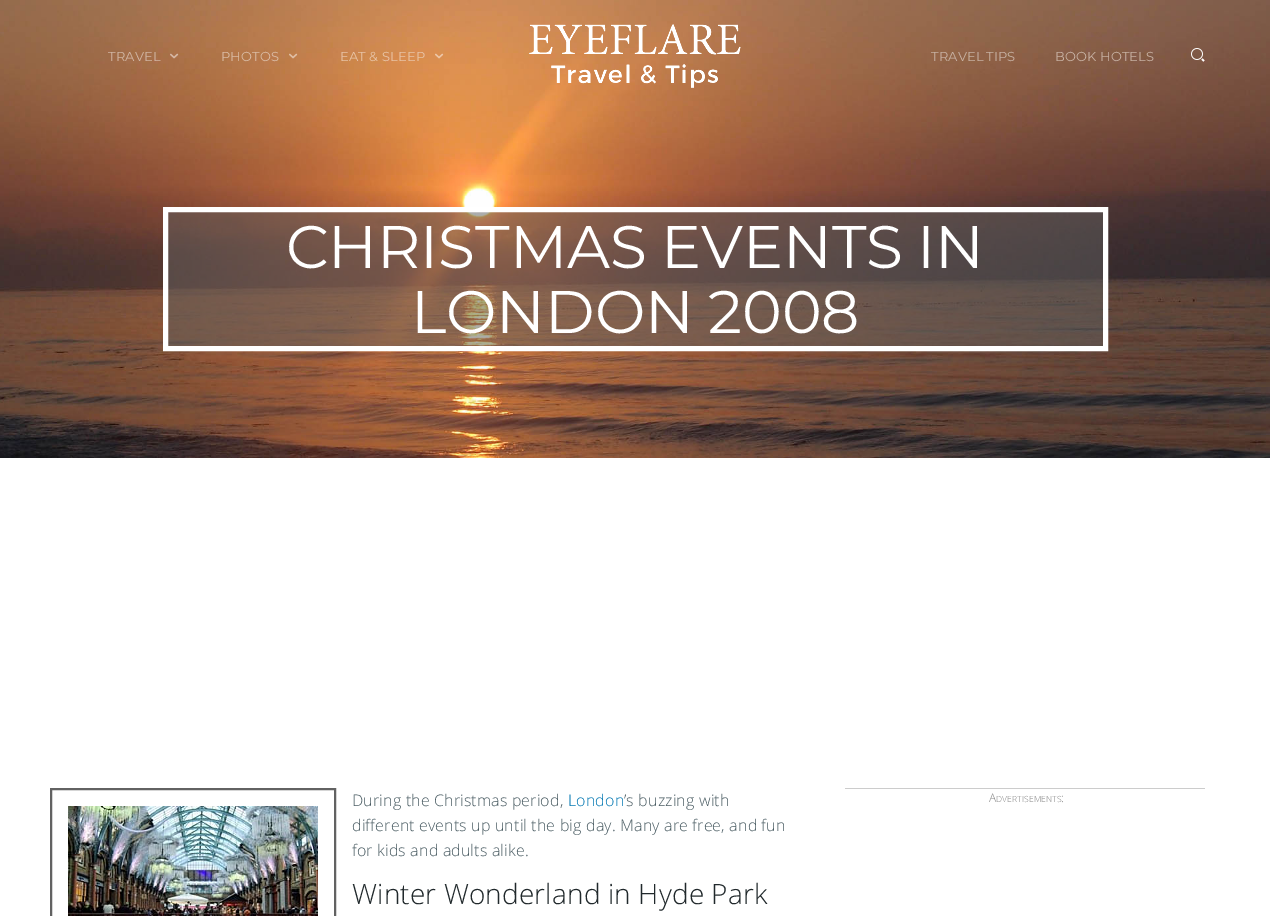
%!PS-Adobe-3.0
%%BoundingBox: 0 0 1270 916
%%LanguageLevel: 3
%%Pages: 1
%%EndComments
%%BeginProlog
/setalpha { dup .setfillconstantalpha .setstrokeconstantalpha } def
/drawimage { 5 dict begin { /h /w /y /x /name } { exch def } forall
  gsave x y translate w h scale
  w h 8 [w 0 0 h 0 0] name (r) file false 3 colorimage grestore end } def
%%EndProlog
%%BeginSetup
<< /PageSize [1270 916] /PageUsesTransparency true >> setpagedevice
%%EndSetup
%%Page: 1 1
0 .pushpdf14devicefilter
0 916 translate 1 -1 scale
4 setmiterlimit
1 setgray
0 0 1270 916 rectfill
(images/6.raw) 0 0 1270 458 drawimage
(images/1.raw) 529 24 212 64 drawimage
(images/2.raw) 170 53 9 6 drawimage
(images/3.raw) 289 53 9 6 drawimage
(images/4.raw) 435 53 9 6 drawimage
(images/5.raw) 1191 48 14 14 drawimage
0.5 setalpha
0.361 setgray
newpath 165.5 209.5 moveto 1105.5 209.5 lineto 1105.5 348.5 lineto 165.5 348.5 lineto closepath fill
1 setalpha
1 setgray
5 setlinewidth
newpath 165.5 209.5 moveto 1105.5 209.5 lineto 1105.5 348.5 lineto 165.5 348.5 lineto closepath stroke
0.384 setgray
2 setlinewidth
51 789 284 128 rectstroke
(images/7.raw) 68 806 250 110 drawimage
0.8 setgray
845 788 360 1 rectfill
/Montserrat-Regular [13 0 0 -13 0 0] selectfont
0.82 0.714 0.643 setrgbcolor
108 61 moveto 0.15 0 (TRAVEL) ashow
0.855 0.737 0.647 setrgbcolor
221 61 moveto 0.15 0 (PHOTOS) ashow
0.91 0.769 0.655 setrgbcolor
340 61 moveto 0.15 0 (EAT & SLEEP) ashow
0.78 0.694 0.639 setrgbcolor
931 61 moveto -1 0 32 0.15 0 (TRAVEL TIPS) awidthshow
1055 61 moveto 0.15 0 (BOOK HOTELS) ashow
/Montserrat-Regular [60 0 0 -60 0 0] selectfont
1 setgray
286 268 moveto -1 0 32 -0.1 0 (CHRISTMAS EVENTS IN) awidthshow
411 333 moveto -1 0 32 -0.1 0 (LONDON 2008) awidthshow
/OpenSans-Light [16 0 0 -16 0 0] selectfont
0.286 0.357 0.384 setrgbcolor
352 806 moveto 0.15 0 (During the Christmas period,) ashow
0.016 0.471 0.702 setrgbcolor
568 806 moveto 0.15 0 (London) ashow
0.286 0.357 0.384 setrgbcolor
624 806 moveto 0.15 0 (’s buzzing with) ashow
352 831 moveto 0.15 0 (different events up until the big day. Many are free, and fun) ashow
352 856 moveto 0.15 0 (for kids and adults alike.) ashow
/OpenSans-Light [28 0 0 -28 0 0] selectfont
0.129 0.161 0.173 setrgbcolor
352 904 moveto 0.15 0 (Winter Wonderland in Hyde Park) ashow
/OpenSans-Light [12 0 0 -12 0 0] selectfont
0.533 setgray
989 802 moveto 0.15 0 (A) ashow
/OpenSans-Light [8.5 0 0 -8.5 0 0] selectfont
996 802 moveto 0.15 0 (DVERTISEMENTS) ashow
/OpenSans-Light [12 0 0 -12 0 0] selectfont
1061 802 moveto 0.15 0 (:) ashow
.poppdf14devicefilter showpage
%%EOF
